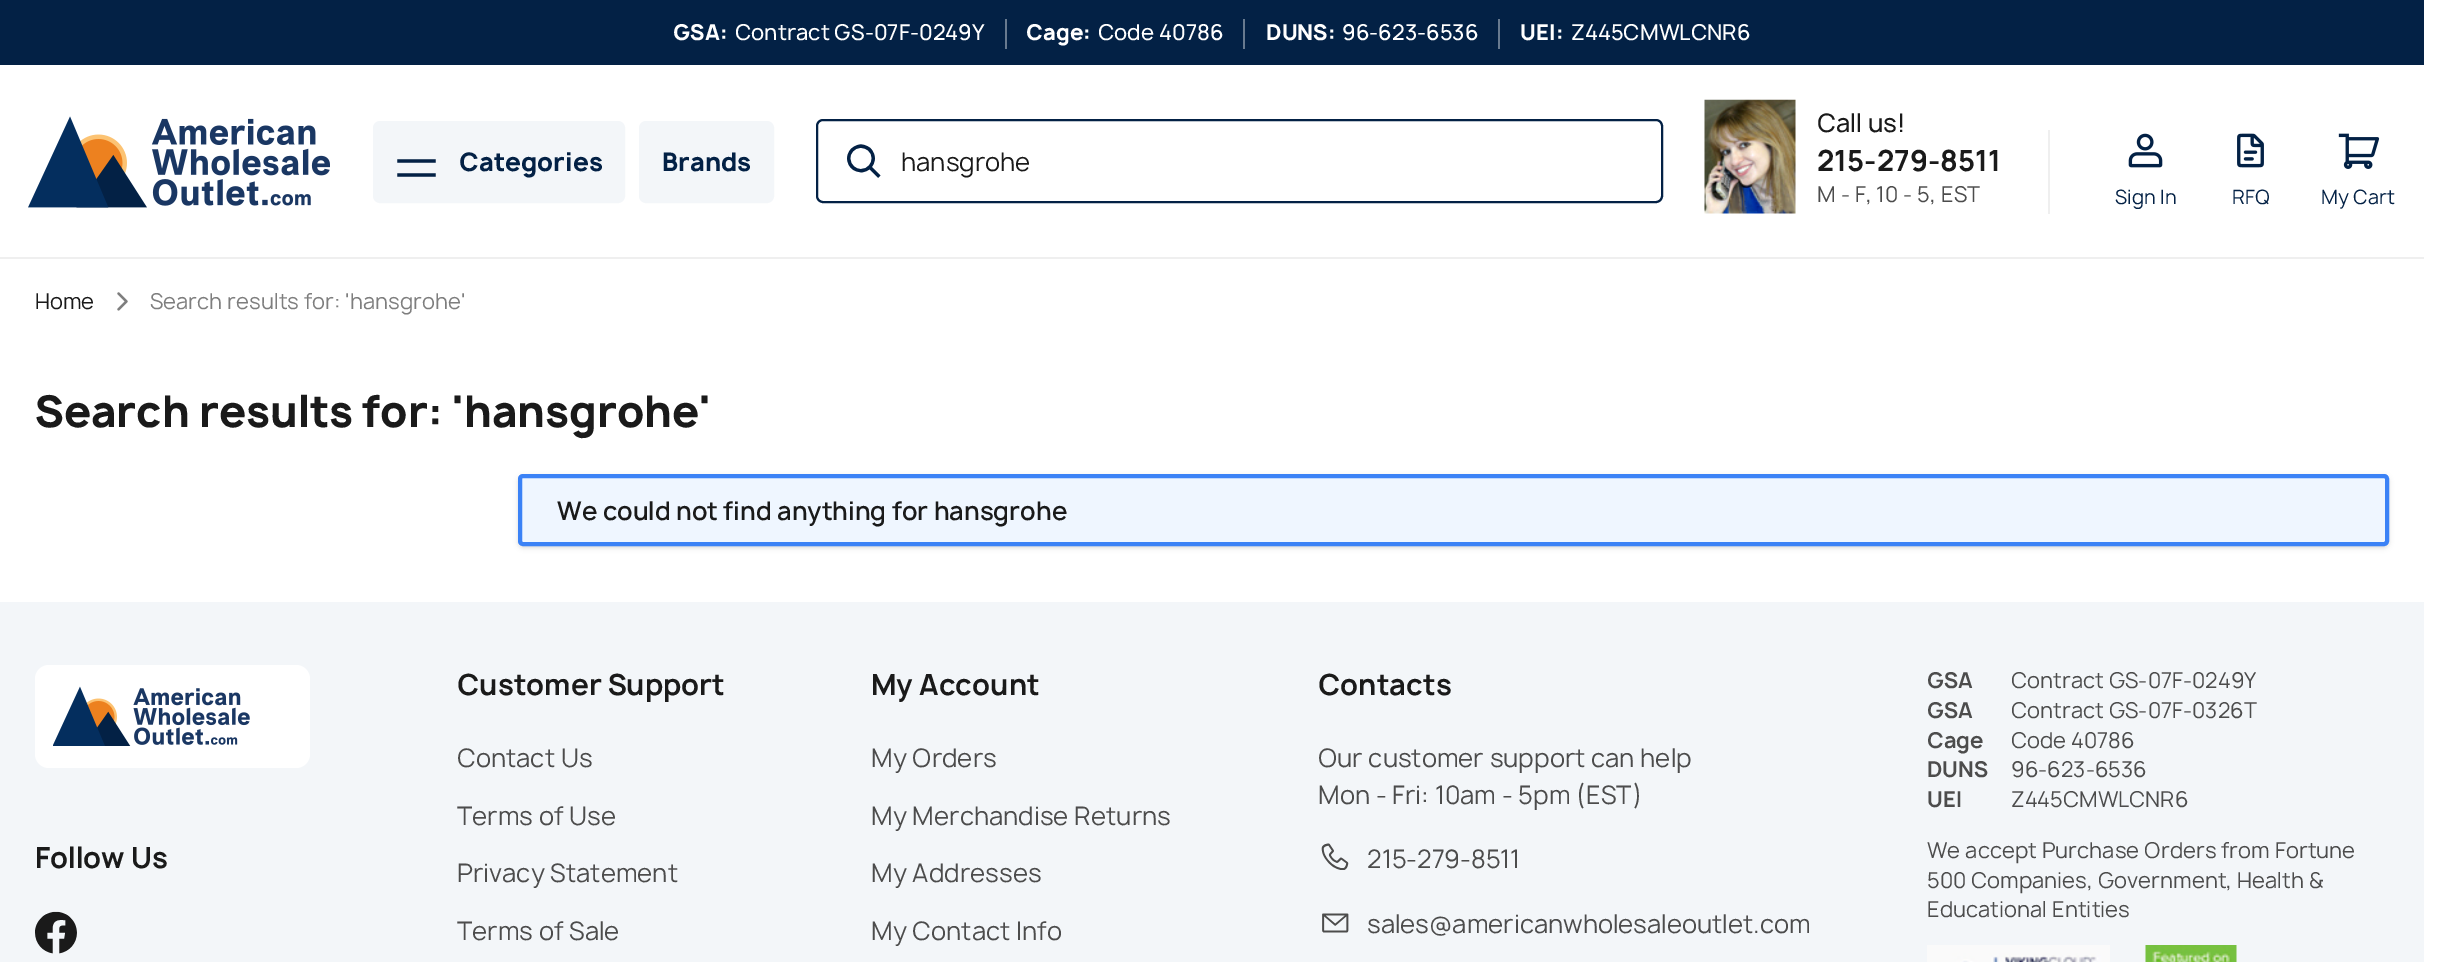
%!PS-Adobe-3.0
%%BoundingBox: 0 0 2449 962
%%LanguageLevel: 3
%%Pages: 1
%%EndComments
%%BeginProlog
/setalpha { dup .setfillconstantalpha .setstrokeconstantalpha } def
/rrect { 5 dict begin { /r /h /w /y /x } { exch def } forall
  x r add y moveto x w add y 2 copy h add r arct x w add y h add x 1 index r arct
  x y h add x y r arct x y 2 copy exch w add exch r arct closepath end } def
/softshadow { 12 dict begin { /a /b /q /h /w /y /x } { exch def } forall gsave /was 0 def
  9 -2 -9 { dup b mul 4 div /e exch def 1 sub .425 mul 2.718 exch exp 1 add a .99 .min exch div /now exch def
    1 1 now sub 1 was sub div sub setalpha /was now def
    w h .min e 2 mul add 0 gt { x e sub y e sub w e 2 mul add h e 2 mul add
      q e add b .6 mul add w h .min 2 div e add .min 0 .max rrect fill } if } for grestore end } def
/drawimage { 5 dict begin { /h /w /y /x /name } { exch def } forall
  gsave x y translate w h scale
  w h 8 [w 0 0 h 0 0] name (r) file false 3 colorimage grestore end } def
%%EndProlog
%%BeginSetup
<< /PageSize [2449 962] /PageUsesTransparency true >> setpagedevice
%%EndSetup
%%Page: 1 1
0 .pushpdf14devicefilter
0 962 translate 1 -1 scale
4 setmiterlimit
1 setgray
0 0 2449 962 rectfill
0.012 0.129 0.271 setrgbcolor
0 0 2424 65 rectfill
0.408 0.478 0.561 setrgbcolor
1005 19 2 30 rectfill
1243 19 2 30 rectfill
1498 19 2 30 rectfill
0.937 setgray
0 257 2424 2 rectfill
(images/1.raw) 28 116 302 92 drawimage
0.953 0.965 0.976 setrgbcolor
374 122 250 80 6 rrect gsave fill grestore
2 setlinewidth
stroke
(images/2.raw) 397 159 39 18 drawimage
640 122 133 80 6 rrect gsave fill grestore
stroke
0.012 0.129 0.271 setrgbcolor
817 120 845 82 6 rrect stroke
(images/3.raw) 847 144 34 34 drawimage
(images/4.raw) 1704 99 92 115 drawimage
0.937 setgray
2048 130 2 84 rectfill
(images/5.raw) 2128 133 35 35 drawimage
(images/6.raw) 2237 133 27 35 drawimage
(images/7.raw) 2338 133 42 36 drawimage
(images/8.raw) 117 292 11 19 drawimage
0 setgray
520 478 1867 68 4 2 0.1 softshadow
518 476 1871 72 5 2.5 0.1 softshadow
0.937 0.965 1 setrgbcolor
520 476 1867 68 3 rrect gsave fill grestore
0.231 0.51 0.965 setrgbcolor
4 setlinewidth
stroke
0.953 0.965 0.976 setrgbcolor
0 602 2424 360 rectfill
1 setgray
35 665 275 103 14 rrect fill
(images/9.raw) 53 686 197 60 drawimage
(images/10.raw) 35 911 42 43 drawimage
(images/11.raw) 1321 843 28 27 drawimage
(images/12.raw) 1322 913 27 20 drawimage
(images/13.raw) 1927 945 183 17 drawimage
(images/14.raw) 2145 945 92 17 drawimage
/Manrope-ExtraBold [21 0 0 -21 0 0] selectfont
673 40 moveto (GSA:) show
/Manrope-Medium [21 0 0 -21 0 0] selectfont
735 40 moveto (Contract GS-07F-0249Y) show
/Manrope-ExtraBold [21 0 0 -21 0 0] selectfont
1026 40 moveto (Cage:) show
/Manrope-Medium [21 0 0 -21 0 0] selectfont
1098 40 moveto (Code 40786) show
/Manrope-ExtraBold [21 0 0 -21 0 0] selectfont
1266 40 moveto (DUNS:) show
/Manrope-Medium [21 0 0 -21 0 0] selectfont
1342 40 moveto (96-623-6536) show
/Manrope-ExtraBold [21 0 0 -21 0 0] selectfont
1520 40 moveto (UEI:) show
/Manrope-Medium [21 0 0 -21 0 0] selectfont
1571 40 moveto (Z445CMWLCNR6) show
/Manrope-ExtraBold [24.5 0 0 -24.5 0 0] selectfont
0.012 0.129 0.271 setrgbcolor
459 171 moveto (Categories) show
662 171 moveto (Brands) show
/Manrope-Regular [24.5 0 0 -24.5 0 0] selectfont
0.102 setgray
901 171 moveto (hansgrohe) show
/Manrope-Medium [24.5 0 0 -24.5 0 0] selectfont
1817 132 moveto (Call us!) show
/Manrope-Bold [28 0 0 -28 0 0] selectfont
1817 171 moveto (215-279-8511) show
/Manrope-Regular [21 0 0 -21 0 0] selectfont
0.298 setgray
1817 202 moveto (M - F, 10 - 5, EST) show
/Manrope-Regular [19 0 0 -19 0 0] selectfont
0.012 0.129 0.271 setrgbcolor
2115 204 moveto (Sign In) show
2232 204 moveto (RFQ) show
2321 204 moveto (My Cart) show
/Manrope-Regular [21 0 0 -21 0 0] selectfont
0.102 setgray
35 309 moveto (Home) show
0.494 setgray
150 309 moveto (Search results for: 'hansgrohe') show
/Manrope-ExtraBold [42 0 0 -42 0 0] selectfont
0.102 setgray
35 427 moveto (Search results for: 'hansgrohe') show
/Manrope-SemiBold [24.5 0 0 -24.5 0 0] selectfont
557 520 moveto (We could not find anything for hansgrohe) show
/Manrope-Bold [28 0 0 -28 0 0] selectfont
35 868 moveto (Follow Us) show
457 695 moveto (Customer Support) show
/Manrope-Regular [24.5 0 0 -24.5 0 0] selectfont
0.298 setgray
457 767 moveto (Contact Us) show
457 825 moveto (Terms of Use) show
457 882 moveto (Privacy Statement) show
457 940 moveto (Terms of Sale) show
/Manrope-Bold [28 0 0 -28 0 0] selectfont
0.102 setgray
871 695 moveto (My Account) show
/Manrope-Regular [24.5 0 0 -24.5 0 0] selectfont
0.298 setgray
871 767 moveto (My Orders) show
871 825 moveto (My Merchandise Returns) show
871 882 moveto (My Addresses) show
871 940 moveto (My Contact Info) show
/Manrope-Bold [28 0 0 -28 0 0] selectfont
0.102 setgray
1318 695 moveto (Contacts) show
/Manrope-Regular [24.5 0 0 -24.5 0 0] selectfont
0.298 setgray
1318 767 moveto (Our customer support can help) show
1318 804 moveto (Mon - Fri: 10am - 5pm \(EST\)) show
1367 868 moveto (215-279-8511) show
1367 933 moveto (sales@americanwholesaleoutlet.com) show
/Manrope-Bold [21 0 0 -21 0 0] selectfont
1927 688 moveto (GSA) show
/Manrope-Regular [21 0 0 -21 0 0] selectfont
2011 688 moveto (Contract GS-07F-0249Y) show
/Manrope-Bold [21 0 0 -21 0 0] selectfont
1927 718 moveto (GSA) show
/Manrope-Regular [21 0 0 -21 0 0] selectfont
2011 718 moveto (Contract GS-07F-0326T) show
/Manrope-Bold [21 0 0 -21 0 0] selectfont
1927 748 moveto (Cage) show
/Manrope-Regular [21 0 0 -21 0 0] selectfont
2011 748 moveto (Code 40786) show
/Manrope-Bold [21 0 0 -21 0 0] selectfont
1927 777 moveto (DUNS) show
/Manrope-Regular [21 0 0 -21 0 0] selectfont
2011 777 moveto (96-623-6536) show
/Manrope-Bold [21 0 0 -21 0 0] selectfont
1927 807 moveto (UEI) show
/Manrope-Regular [21 0 0 -21 0 0] selectfont
2011 807 moveto (Z445CMWLCNR6) show
1927 858 moveto (We accept Purchase Orders from Fortune) show
1927 888 moveto (500 Companies, Government, Health &) show
1927 917 moveto (Educational Entities) show
.poppdf14devicefilter showpage
%%EOF
